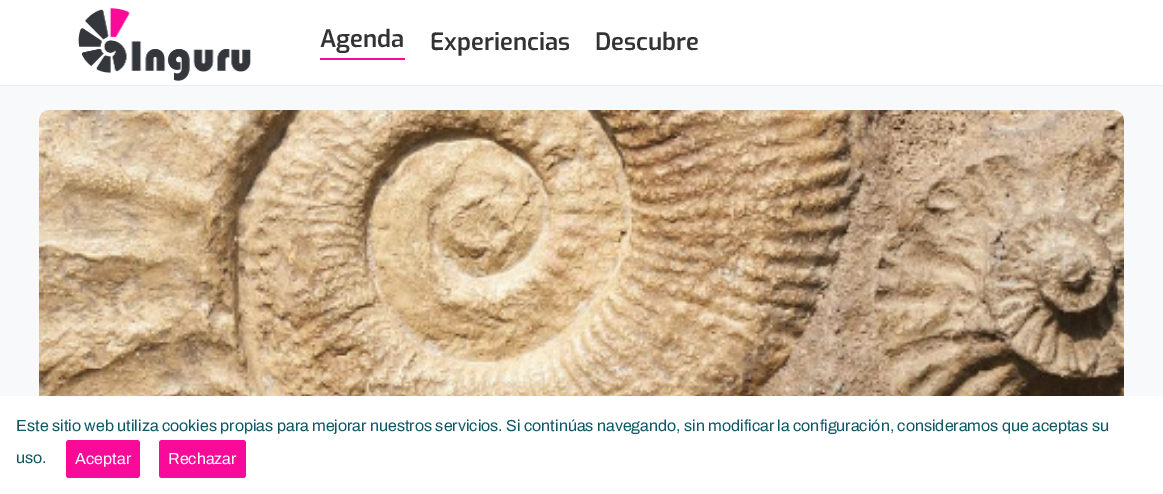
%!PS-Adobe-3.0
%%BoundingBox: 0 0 1163 494
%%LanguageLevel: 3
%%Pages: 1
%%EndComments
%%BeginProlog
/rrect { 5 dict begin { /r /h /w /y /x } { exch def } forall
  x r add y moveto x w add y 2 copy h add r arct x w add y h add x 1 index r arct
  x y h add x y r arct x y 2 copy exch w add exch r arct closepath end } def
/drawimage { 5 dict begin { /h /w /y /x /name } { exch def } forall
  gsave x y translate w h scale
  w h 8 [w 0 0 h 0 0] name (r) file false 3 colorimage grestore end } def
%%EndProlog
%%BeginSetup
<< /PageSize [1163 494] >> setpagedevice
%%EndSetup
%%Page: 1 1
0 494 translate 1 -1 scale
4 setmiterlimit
0.973 0.976 0.98 setrgbcolor
0 0 1163 494 rectfill
1 setgray
0 0 1163 85 rectfill
0.937 setgray
0 85 1163 1 rectfill
(images/1.raw) 78 8 173 73 drawimage
0.976 0.039 0.6 setrgbcolor
320 58 85 2 rectfill
(images/2.raw) 39 110 1085 286 drawimage
(images/3.raw) 547 215 57 67 drawimage
1 setgray
0 396 1163 98 rectfill
0.976 0.039 0.6 setrgbcolor
66 440 74 38 3 rrect fill
159 440 87 38 3 rrect fill
/Exo-SemiBold [24 0 0 -24 0 0] selectfont
0.2 setgray
320 47 moveto (Agenda) show
430 50 moveto (Experiencias) show
595 50 moveto (Descubre) show
/Archivo-Regular [16 0 0 -16 0 0] selectfont
0.059 0.345 0.4 setrgbcolor
16 431 moveto (Este sitio web utiliza cookies propias para mejorar nuestros servicios. Si continúas navegando, sin modificar la configuración, consideramos que aceptas su) show
16 463 moveto (uso.) show
1 setgray
75 464 moveto (Aceptar) show
168 464 moveto (Rechazar) show
showpage
%%EOF
